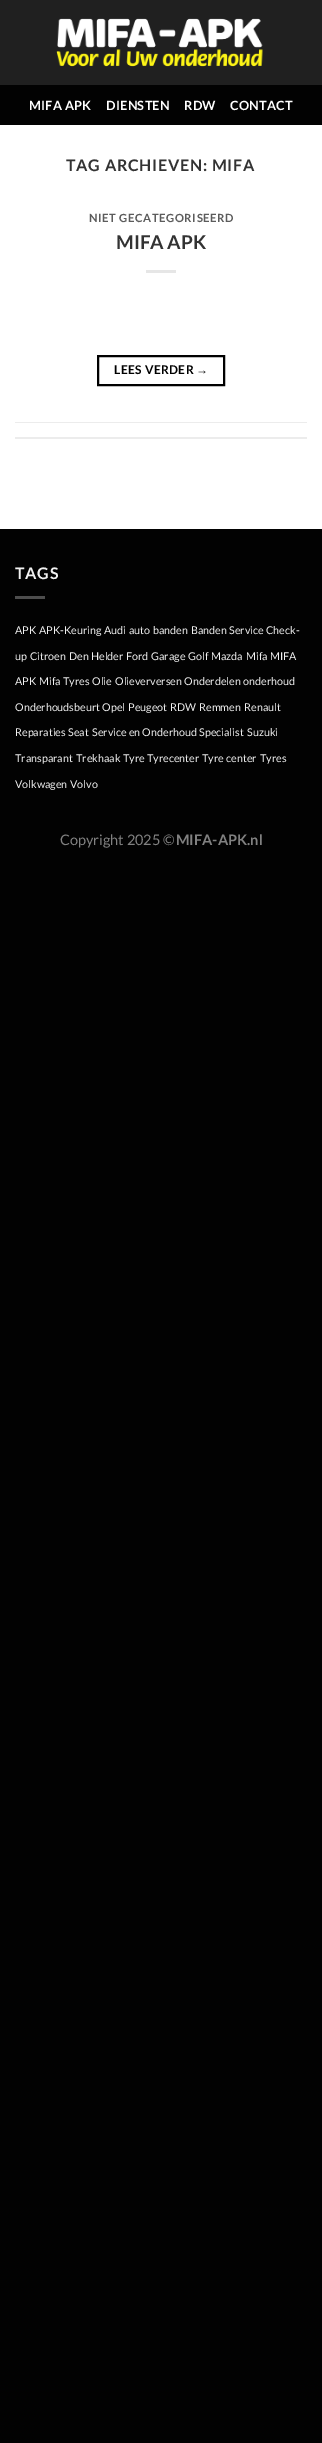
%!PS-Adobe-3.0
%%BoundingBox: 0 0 322 2443
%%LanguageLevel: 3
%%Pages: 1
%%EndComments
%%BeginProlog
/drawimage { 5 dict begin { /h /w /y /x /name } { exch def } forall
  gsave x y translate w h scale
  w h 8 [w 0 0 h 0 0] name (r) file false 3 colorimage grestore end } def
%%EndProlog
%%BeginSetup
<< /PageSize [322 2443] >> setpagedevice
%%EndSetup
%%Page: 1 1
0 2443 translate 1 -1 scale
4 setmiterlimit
0.008 setgray
0 0 322 2443 rectfill
1 setgray
0 125 322 404 rectfill
0.125 setgray
0 0 322 85 rectfill
(images/1.raw) 56 18 207 49 drawimage
0.902 setgray
146 270 30 3 rectfill
0 setgray
2 setlinewidth
98 356 126 29 rectstroke
0.925 setgray
15 422 292 1 rectfill
15 437 292 2 rectfill
0.302 setgray
15 596 30 3 rectfill
/Lato-Bold [12.75 0 0 -12.75 0 0] selectfont
1 setgray
29 110 moveto 0.25 0 (MIFA APK) ashow
106 110 moveto 0.25 0 (DIENSTEN) ashow
184 110 moveto 0.25 0 (RDW) ashow
230 110 moveto 0.25 0 (CONTACT) ashow
/Lato-Bold [16 0 0 -16 0 0] selectfont
0.2 setgray
66 171 moveto 0.75 0 (TAG ARCHIEVEN: MIFA) ashow
/Lato-Bold [11.25 0 0 -11.25 0 0] selectfont
0.361 setgray
89 222 moveto 0.6 0 (NIET GECATEGORISEERD) ashow
/Lato-Bold [19 0 0 -19 0 0] selectfont
0.2 setgray
116 249 moveto (MIFA APK) show
/Lato-Bold [12 0 0 -12 0 0] selectfont
0 setgray
114 374 moveto 0.4 0 (LEES VERDER) ashow
/LiberationSans-Bold [12 0 0 -12 0 0] selectfont
196 374 moveto 0.4 0 (→) ashow
/Lato-Bold [16 0 0 -16 0 0] selectfont
0.945 setgray
15 579 moveto 0.75 0 (TAGS) ashow
/Lato-Regular [10.75 0 0 -10.75 0 0] selectfont
15 634 moveto (APK) show
39 634 moveto (APK-Keuring) show
104 634 moveto (Audi) show
129 634 moveto (auto) show
153 634 moveto (banden) show
191 634 moveto (Banden Service) show
266 634 moveto (Check-) show
15 660 moveto (up) show
30 660 moveto (Citroen) show
69 660 moveto (Den Helder) show
126 660 moveto (Ford) show
151 660 moveto (Garage) show
188 660 moveto (Golf) show
211 660 moveto (Mazda) show
246 660 moveto (Mifa) show
270 660 moveto (MIFA) show
15 685 moveto (APK) show
39 685 moveto (Mifa Tyres) show
92 685 moveto (Olie) show
115 685 moveto (Olieverversen) show
184 685 moveto (Onderdelen) show
243 685 moveto (onderhoud) show
15 711 moveto (Onderhoudsbeurt) show
102 711 moveto (Opel) show
128 711 moveto (Peugeot) show
170 711 moveto (RDW) show
199 711 moveto (Remmen) show
244 711 moveto (Renault) show
15 736 moveto (Reparaties) show
68 736 moveto (Seat) show
92 736 moveto (Service en Onderhoud) show
199 736 moveto (Specialist) show
247 736 moveto (Suzuki) show
15 762 moveto (Transparant) show
76 762 moveto (Trekhaak) show
123 762 moveto (Tyre) show
147 762 moveto (Tyrecenter) show
202 762 moveto (Tyre center) show
260 762 moveto (Tyres) show
15 788 moveto (Volkwagen) show
70 788 moveto (Volvo) show
/Lato-Regular [14.5 0 0 -14.5 0 0] selectfont
0.506 setgray
60 845 moveto (Copyright 2025 ©) show
/Lato-Bold [14.5 0 0 -14.5 0 0] selectfont
176 845 moveto (MIFA-APK.nl) show
showpage
%%EOF
